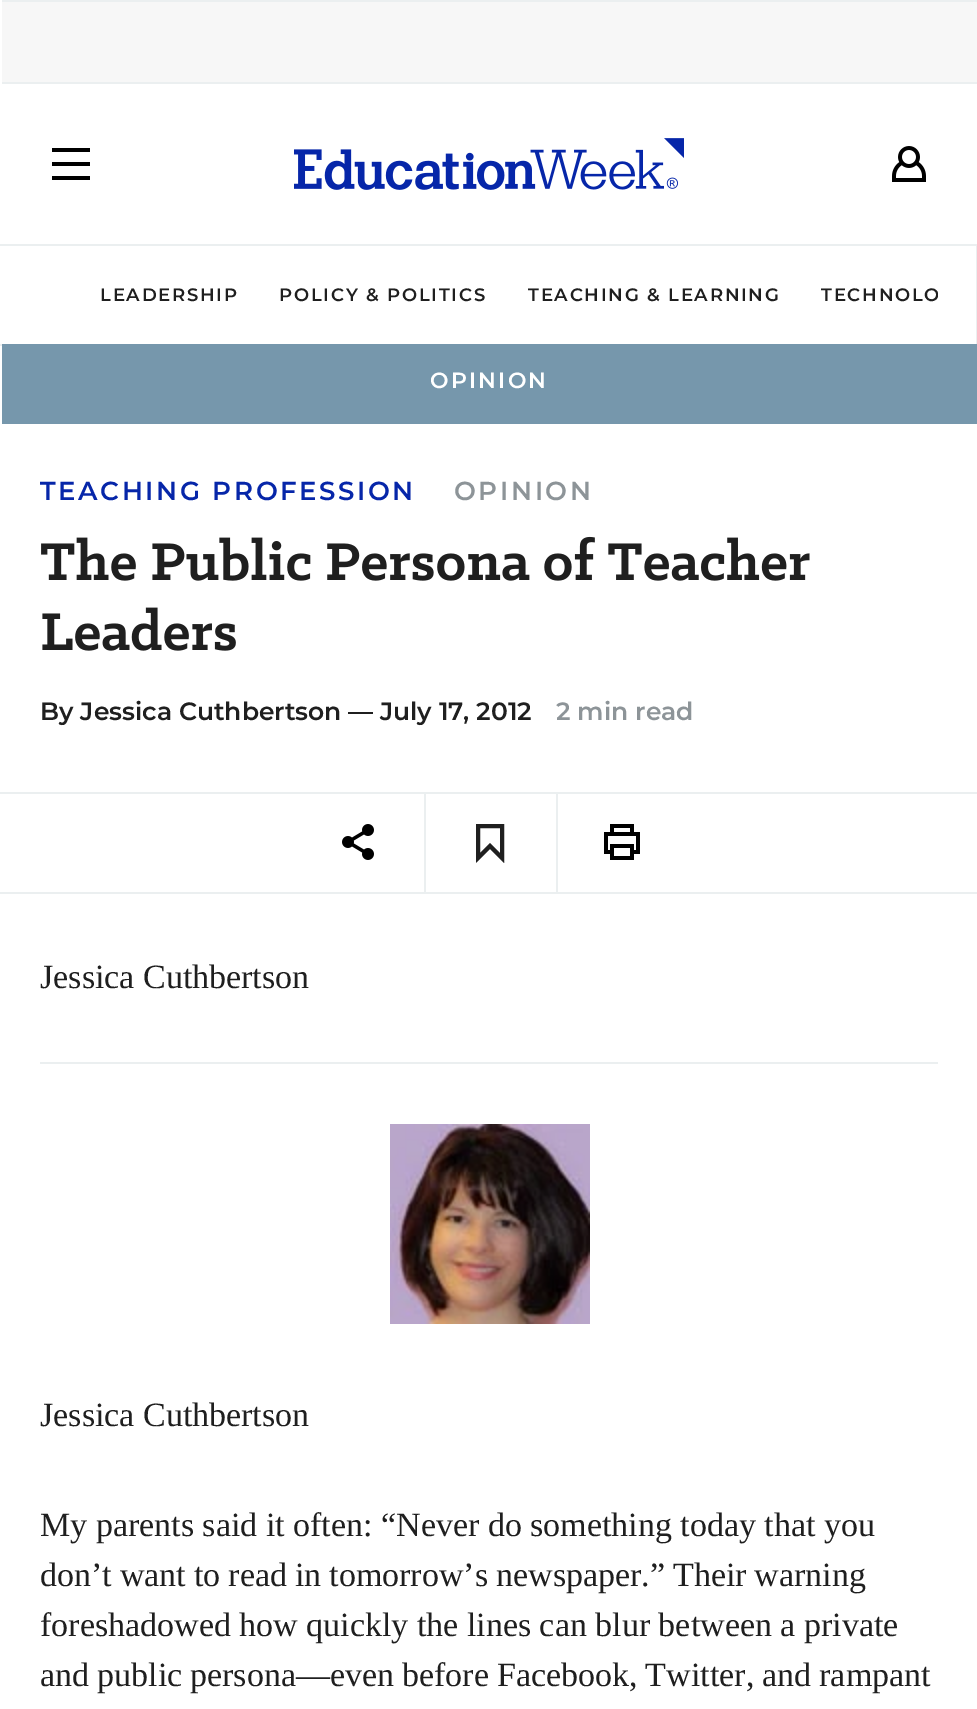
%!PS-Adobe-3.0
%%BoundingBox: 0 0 977 1709
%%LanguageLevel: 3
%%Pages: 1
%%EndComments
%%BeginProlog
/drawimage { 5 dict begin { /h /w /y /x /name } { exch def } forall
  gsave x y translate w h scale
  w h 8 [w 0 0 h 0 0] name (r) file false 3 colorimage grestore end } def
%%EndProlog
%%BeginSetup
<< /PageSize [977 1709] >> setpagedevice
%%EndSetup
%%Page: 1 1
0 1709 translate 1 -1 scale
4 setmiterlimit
1 setgray
0 0 977 1709 rectfill
0.969 setgray
2 2 975 80 rectfill
0.922 0.937 0.941 setrgbcolor
2 0 975 2 rectfill
2 82 975 2 rectfill
0 244 977 2 rectfill
0 setgray
newpath 90 148 moveto 52 148 lineto 52 152 lineto 90 152 lineto closepath 52 162 moveto 90 162 lineto 90 166 lineto 52 166 lineto closepath 52 176 moveto 90 176 lineto 90 180 lineto 52 180 lineto closepath eofill
(images/1.raw) 294 138 390 52 drawimage
(images/2.raw) 892 146 34 36 drawimage
gsave
0 246 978 100 rectclip
0.922 0.937 0.941 setrgbcolor
newpath -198 48 moveto 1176 48 lineto 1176 544 lineto -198 544 lineto closepath -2 244 moveto 976 244 lineto 976 344 lineto -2 344 lineto closepath eofill
grestore
0.463 0.592 0.675 setrgbcolor
2 344 975 80 rectfill
(images/3.raw) 41 536 769 45 drawimage
(images/4.raw) 42 607 194 44 drawimage
0.922 0.937 0.941 setrgbcolor
424 792 2 100 rectfill
556 792 2 100 rectfill
0 792 977 2 rectfill
(images/5.raw) 342 824 32 36 drawimage
0.122 setgray
4 setlinewidth
newpath 478 826 moveto 502 826 lineto 502 858 lineto 490 846 lineto 478 858 lineto closepath stroke
(images/6.raw) 604 824 36 36 drawimage
0.922 0.937 0.941 setrgbcolor
0 892 977 2 rectfill
40 1062 898 2 rectfill
(images/7.raw) 390 1124 200 200 drawimage
/Montserrat-SemiBold [18 0 0 -18 0 0] selectfont
0.122 setgray
100 301 moveto 1.75 0 (LEADERSHIP) ashow
279 301 moveto 1.75 0 (POLICY & POLITICS) ashow
528 301 moveto 1.75 0 (TEACHING & LEARNING) ashow
gsave
40 246 898 100 rectclip
821 301 moveto 1.75 0 (TECHNOLO) ashow
grestore
/Montserrat-SemiBold [22 0 0 -22 0 0] selectfont
1 setgray
430 388 moveto 2.25 0 (OPINION) ashow
/Montserrat-SemiBold [26 0 0 -26 0 0] selectfont
0.024 0.149 0.663 setrgbcolor
40 500 moveto 2.6 0 (TEACHING PROFESSION) ashow
0.553 0.58 0.596 setrgbcolor
454 500 moveto 2.6 0 (OPINION) ashow
/Montserrat-SemiBold [25 0 0 -25 0 0] selectfont
0.122 setgray
40 720 moveto (By Jessica Cuthbertson —) show
380 720 moveto (July 17, 2012) show
0.553 0.58 0.596 setrgbcolor
556 720 moveto (2 min read) show
/LiberationSerif-Regular [34 0 0 -34 0 0] selectfont
0.122 setgray
40 988 moveto (Jessica Cuthbertson) show
40 1426 moveto (Jessica Cuthbertson) show
40 1536 moveto (My parents said it often: “Never do something today that you) show
40 1586 moveto -0.5 0 32 (don’t want to read in tomorrow’s newspaper.” Their warning) widthshow
40 1636 moveto (foreshadowed how quickly the lines can blur between a private) show
40 1686 moveto -0.5 0 32 (and public persona—even before Facebook, Twitter, and rampant) widthshow
showpage
%%EOF
